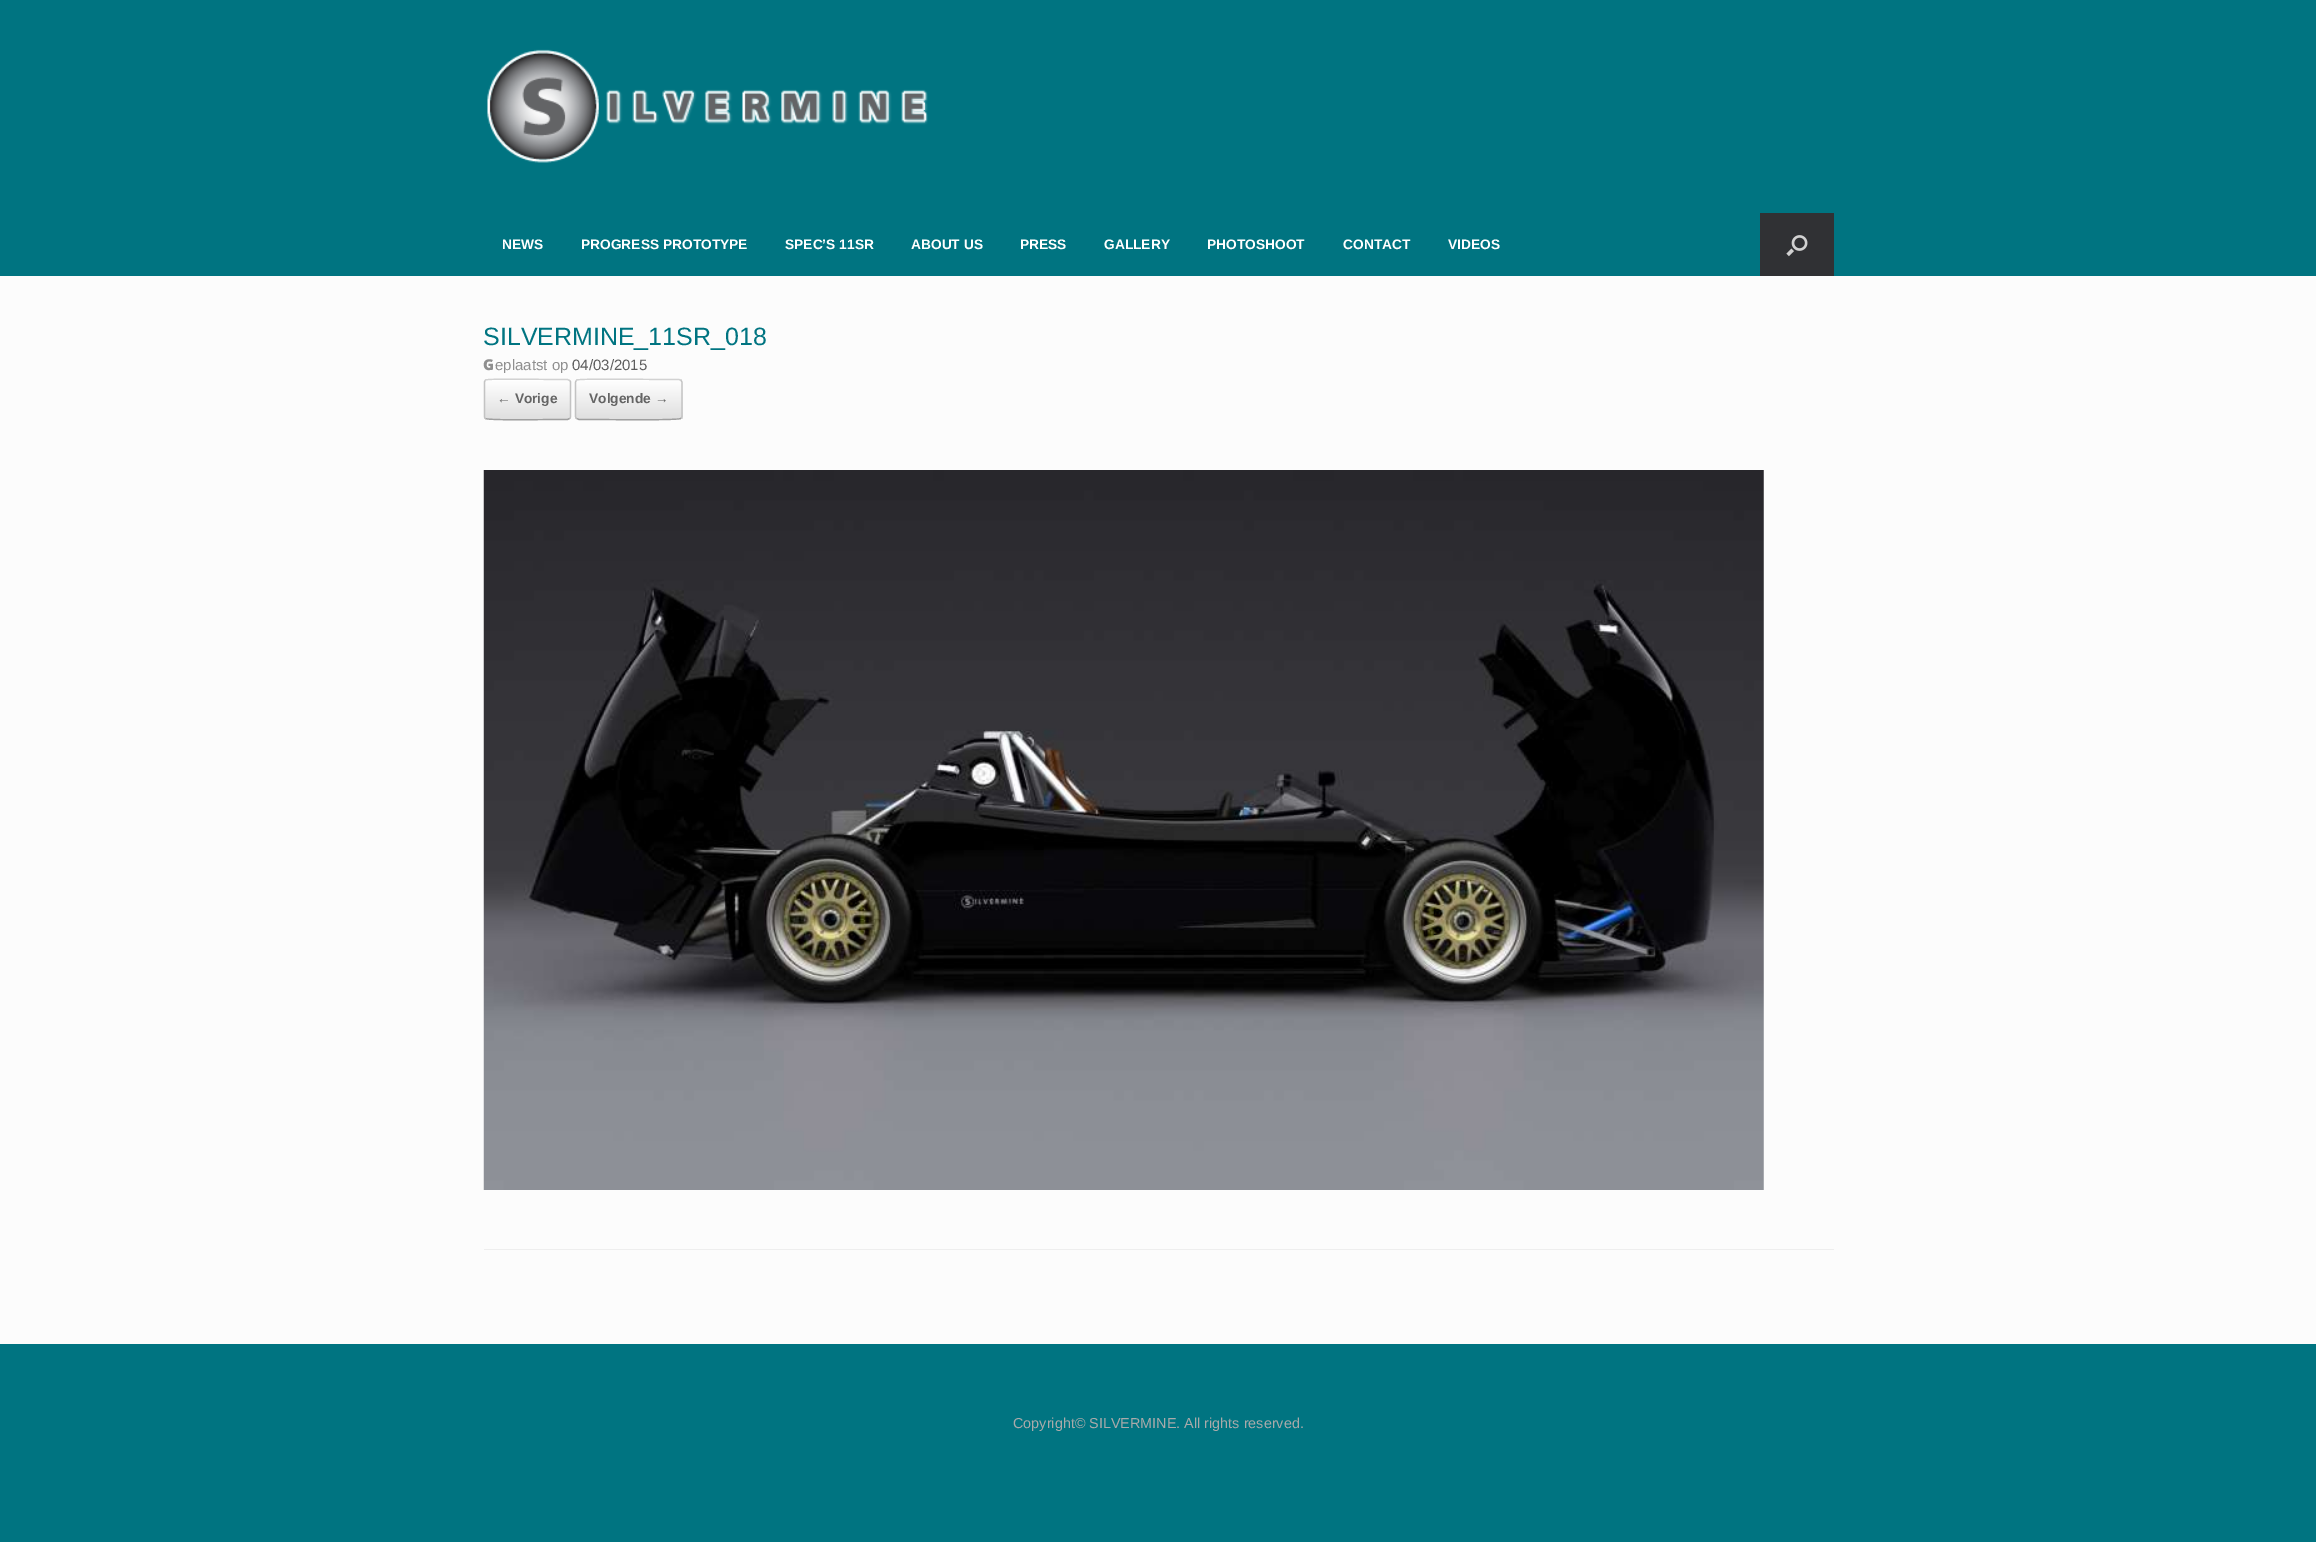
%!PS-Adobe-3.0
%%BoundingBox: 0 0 2316 1542
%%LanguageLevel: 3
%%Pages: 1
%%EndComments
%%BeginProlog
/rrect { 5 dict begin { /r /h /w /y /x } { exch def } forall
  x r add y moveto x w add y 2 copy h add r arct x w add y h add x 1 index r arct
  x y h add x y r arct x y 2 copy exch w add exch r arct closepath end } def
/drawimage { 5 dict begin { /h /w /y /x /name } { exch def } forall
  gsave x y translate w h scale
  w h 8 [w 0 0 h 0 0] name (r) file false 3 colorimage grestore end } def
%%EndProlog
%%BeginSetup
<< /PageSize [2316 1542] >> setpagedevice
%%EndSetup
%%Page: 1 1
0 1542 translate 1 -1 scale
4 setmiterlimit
0 0.455 0.506 setrgbcolor
0 0 2316 1542 rectfill
(images/1.raw) 487 49 441 114 drawimage
0.188 0.192 0.204 setrgbcolor
1760 213 74 63 rectfill
(images/2.raw) 1786 235 22 22 drawimage
0.988 setgray
0 276 2316 1068 rectfill
0.933 setgray
484 1249 1350 1 rectfill
gsave
484 379 87 41 4 rrect clip newpath
gsave newpath 484 380 moveto 571 380 lineto 571 419 lineto 484 419 lineto closepath clip newpath
<< /ShadingType 2 /ColorSpace /DeviceRGB /Coords [485 419 485 380] /Extend [true true] /Function << /FunctionType 2 /Domain [0 1] /C0 [0.875 0.875 0.875] /C1 [1 1 1] /N 1 >> >> shfill grestore
gsave newpath 484 419 moveto 571 419 lineto 571 420 lineto 484 420 lineto closepath clip newpath
<< /ShadingType 2 /ColorSpace /DeviceRGB /Coords [485 458 485 419] /Extend [true true] /Function << /FunctionType 2 /Domain [0 1] /C0 [0.875 0.875 0.875] /C1 [1 1 1] /N 1 >> >> shfill grestore
grestore
0.824 setgray
1.2 setlinewidth
newpath 485.5 380.5 moveto 485.5 380 lineto 487.5 378.5 546.5 379.5 554 379.5 curveto 567.5 379.5 lineto 569.5 380.5 lineto stroke
0.765 setgray
newpath 569.5 380.5 moveto 570.5 381 570.5 381.5 570.5 382.5 curveto 570.5 416 lineto 570.5 417 570.5 418 569.5 418.5 curveto stroke
0.624 setgray
newpath 569.5 418.5 moveto 567.5 419.5 lineto 554 419.5 lineto 546.5 419.5 487.5 420.5 485.5 418.5 curveto stroke
0.765 setgray
newpath 485.5 418.5 moveto 484.5 418 484.5 417 484.5 416 curveto 484.5 382.5 lineto 484.5 381.5 484.5 381 485.5 380.5 curveto stroke
gsave
575 379 108 41 4 rrect clip newpath
gsave newpath 575 379 moveto 683 379 lineto 683 380 lineto 575 380 lineto closepath clip newpath
<< /ShadingType 2 /ColorSpace /DeviceRGB /Coords [576 380 576 341] /Extend [true true] /Function << /FunctionType 2 /Domain [0 1] /C0 [0.875 0.875 0.875] /C1 [1 1 1] /N 1 >> >> shfill grestore
gsave newpath 575 380 moveto 683 380 lineto 683 419 lineto 575 419 lineto closepath clip newpath
<< /ShadingType 2 /ColorSpace /DeviceRGB /Coords [576 419 576 380] /Extend [true true] /Function << /FunctionType 2 /Domain [0 1] /C0 [0.875 0.875 0.875] /C1 [1 1 1] /N 1 >> >> shfill grestore
gsave newpath 575 419 moveto 683 419 lineto 683 420 lineto 575 420 lineto closepath clip newpath
<< /ShadingType 2 /ColorSpace /DeviceRGB /Coords [576 458 576 419] /Extend [true true] /Function << /FunctionType 2 /Domain [0 1] /C0 [0.875 0.875 0.875] /C1 [1 1 1] /N 1 >> >> shfill grestore
grestore
0.824 setgray
newpath 576.5 380.5 moveto 577 380 lineto 579 378.5 653 379.5 662 379.5 curveto 679 379.5 lineto 681 380.5 lineto stroke
0.765 setgray
newpath 681 380.5 moveto 681.5 381 682 381.5 682 382.5 curveto 682 416 lineto 682 417 681.5 418 681 418.5 curveto stroke
0.624 setgray
newpath 681 418.5 moveto 680.5 418.5 lineto 678.5 420.5 604.5 419.5 595.5 419.5 curveto 579 419.5 lineto 576.5 418.5 lineto stroke
0.765 setgray
newpath 576.5 418.5 moveto 576 418 575.5 417 575.5 416 curveto 575.5 382.5 lineto 575.5 381.5 576 381 576.5 380.5 curveto stroke
(images/3.raw) 483 470 1281 720 drawimage
/LiberationSans-Bold [13.75 0 0 -13.75 0 0] selectfont
1 setgray
502 249 moveto (NEWS) show
581 249 moveto (PROGRESS PROTOTYPE) show
785 249 moveto (SPEC’S 11SR) show
911 249 moveto (ABOUT US) show
1020 249 moveto (PRESS) show
1104 249 moveto (GALLERY) show
1207 249 moveto (PHOTOSHOOT) show
1343 249 moveto (CONTACT) show
1448 249 moveto (VIDEOS) show
/LiberationSans-Regular [25 0 0 -25 0 0] selectfont
0 0.455 0.506 setrgbcolor
483 345 moveto (SILVERMINE_11SR_018) show
/NotoSans-Black [15 0 0 -15 0 0] selectfont
0.561 setgray
483 370 moveto (G) show
/LiberationSans-Regular [15 0 0 -15 0 0] selectfont
495 370 moveto (eplaatst op) show
0.369 setgray
572 370 moveto (04/03/2015) show
/LiberationSans-Bold [13.75 0 0 -13.75 0 0] selectfont
0.392 setgray
497 403 moveto (← Vorige) show
589 403 moveto (Volgende →) show
/LiberationSans-Regular [14.4 0 0 -14.4 0 0] selectfont
0.667 setgray
1013 1428 moveto (Copyright© SILVERMINE. All rights reserved.) show
showpage
%%EOF
